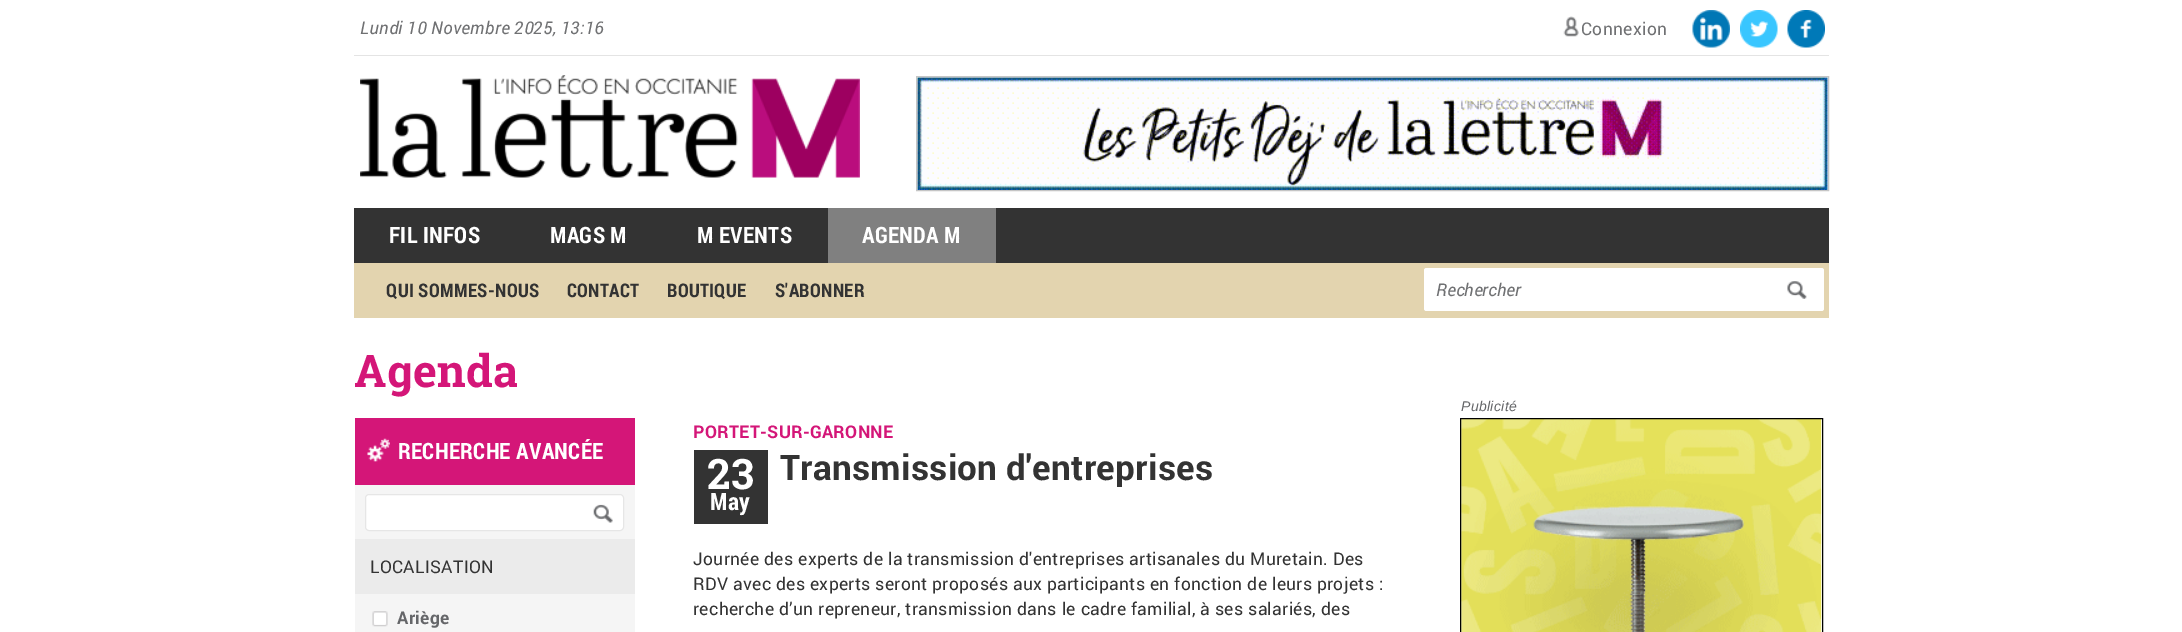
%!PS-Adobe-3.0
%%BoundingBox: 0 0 2182 632
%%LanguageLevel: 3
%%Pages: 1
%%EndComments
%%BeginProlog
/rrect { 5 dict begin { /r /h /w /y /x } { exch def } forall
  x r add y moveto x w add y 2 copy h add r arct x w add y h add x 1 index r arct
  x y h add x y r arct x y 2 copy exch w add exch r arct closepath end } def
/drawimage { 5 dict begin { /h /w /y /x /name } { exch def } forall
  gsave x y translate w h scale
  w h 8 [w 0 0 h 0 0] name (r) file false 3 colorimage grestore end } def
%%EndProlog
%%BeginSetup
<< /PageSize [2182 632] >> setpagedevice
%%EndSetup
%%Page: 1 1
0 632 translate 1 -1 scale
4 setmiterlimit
1 setgray
0 0 2182 632 rectfill
0.894 setgray
354 55 1475 1 rectfill
(images/1.raw) 1563 16 16 21 drawimage
(images/2.raw) 1692 10 38 38 drawimage
(images/3.raw) 1740 10 38 38 drawimage
(images/4.raw) 1787 10 38 38 drawimage
(images/5.raw) 917 77 911 113 drawimage
0.773 setgray
916.5 76.5 912 114 rectstroke
(images/6.raw) 360 75 500 103 drawimage
0.2 setgray
354 208 1475 55 rectfill
0.502 setgray
828 208 168 55 rectfill
0.89 0.831 0.686 setrgbcolor
354 263 1475 55 rectfill
1 setgray
1424 268 400 43 2.5 rrect fill
1424 268 351 43 4 rrect fill
(images/7.raw) 1787 281 20 18 drawimage
(images/8.raw) 1461 419 361 213 drawimage
0 setgray
1460.5 418.5 362 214 rectstroke
0.961 setgray
355 485 280 147 rectfill
0.831 0.086 0.471 setrgbcolor
355 418 280 67 rectfill
(images/9.raw) 367 438 23 24 drawimage
1 setgray
365 494 259 37 4 rrect fill
(images/10.raw) 593 504 20 19 drawimage
0.902 setgray
365.5 494.5 258 36 3.5 rrect stroke
0.922 setgray
355 539 280 55 rectfill
(images/11.raw) 372 611 16 16 drawimage
0.2 setgray
694 450 74 74 rectfill
/Roboto-Italic [17.5 0 0 -17.5 0 0] selectfont
0.439 0.443 0.451 setrgbcolor
360 34 moveto 0.33 0 (Lundi 10 Novembre 2025, 13:16) ashow
/Roboto-Regular [17.5 0 0 -17.5 0 0] selectfont
1581 35 moveto 0.33 0 (Connexion) ashow
/RobotoCondensed-Bold [22.5 0 0 -22.5 0 0] selectfont
1 setgray
389 243 moveto 0.33 0 (FIL INFOS) ashow
550 243 moveto 0.33 0 (MAGS M) ashow
697 243 moveto 0.33 0 (M EVENTS) ashow
862 243 moveto 0.33 0 (AGENDA M) ashow
/RobotoCondensed-Bold [18.75 0 0 -18.75 0 0] selectfont
0.2 setgray
386 297 moveto 0.33 0 (QUI SOMMES-NOUS) ashow
567 297 moveto 0.33 0 (CONTACT) ashow
667 297 moveto 0.33 0 (BOUTIQUE) ashow
775 297 moveto 0.33 0 (S'ABONNER) ashow
/Roboto-Italic [17.5 0 0 -17.5 0 0] selectfont
0.439 0.443 0.451 setrgbcolor
1436 296 moveto (Rechercher) show
/RobotoSlab-Bold [45 0 0 -45 0 0] selectfont
0.831 0.086 0.471 setrgbcolor
354 387 moveto 0.33 0 (Agenda) ashow
/LiberationSans-Italic [14 0 0 -14 0 0] selectfont
0.396 0.4 0.412 setrgbcolor
1461 411 moveto 0.33 0 (Publicité) ashow
/RobotoCondensed-Bold [22.5 0 0 -22.5 0 0] selectfont
1 setgray
398 459 moveto 0.33 0 (RECHERCHE AVANCÉE) ashow
/Roboto-Regular [17.5 0 0 -17.5 0 0] selectfont
0.2 setgray
370 573 moveto 0.33 0 (LOCALISATION) ashow
/Roboto-Bold [17.5 0 0 -17.5 0 0] selectfont
0.396 0.4 0.412 setrgbcolor
397 624 moveto 0.33 0 (Ariège) ashow
0.831 0.086 0.471 setrgbcolor
693 438 moveto 0.33 0 (PORTET-SUR-GARONNE) ashow
/RobotoSlab-Bold [42 0 0 -42 0 0] selectfont
1 setgray
707 489 moveto 0.33 0 (23) ashow
/RobotoCondensed-Bold [24 0 0 -24 0 0] selectfont
710 510 moveto 0.33 0 (May) ashow
/Roboto-Bold [35 0 0 -35 0 0] selectfont
0.2 setgray
780 480 moveto 0.33 0 (Transmission d'entreprises) ashow
/Roboto-Regular [17.5 0 0 -17.5 0 0] selectfont
693 565 moveto 0.33 0 (Journée des experts de la transmission d'entreprises artisanales du Muretain. Des) ashow
693 590 moveto 0.33 0 (RDV avec des experts seront proposés aux participants en fonction de leurs projets :) ashow
693 615 moveto 0.33 0 (recherche d’un repreneur, transmission dans le cadre familial, à ses salariés, des) ashow
showpage
%%EOF
